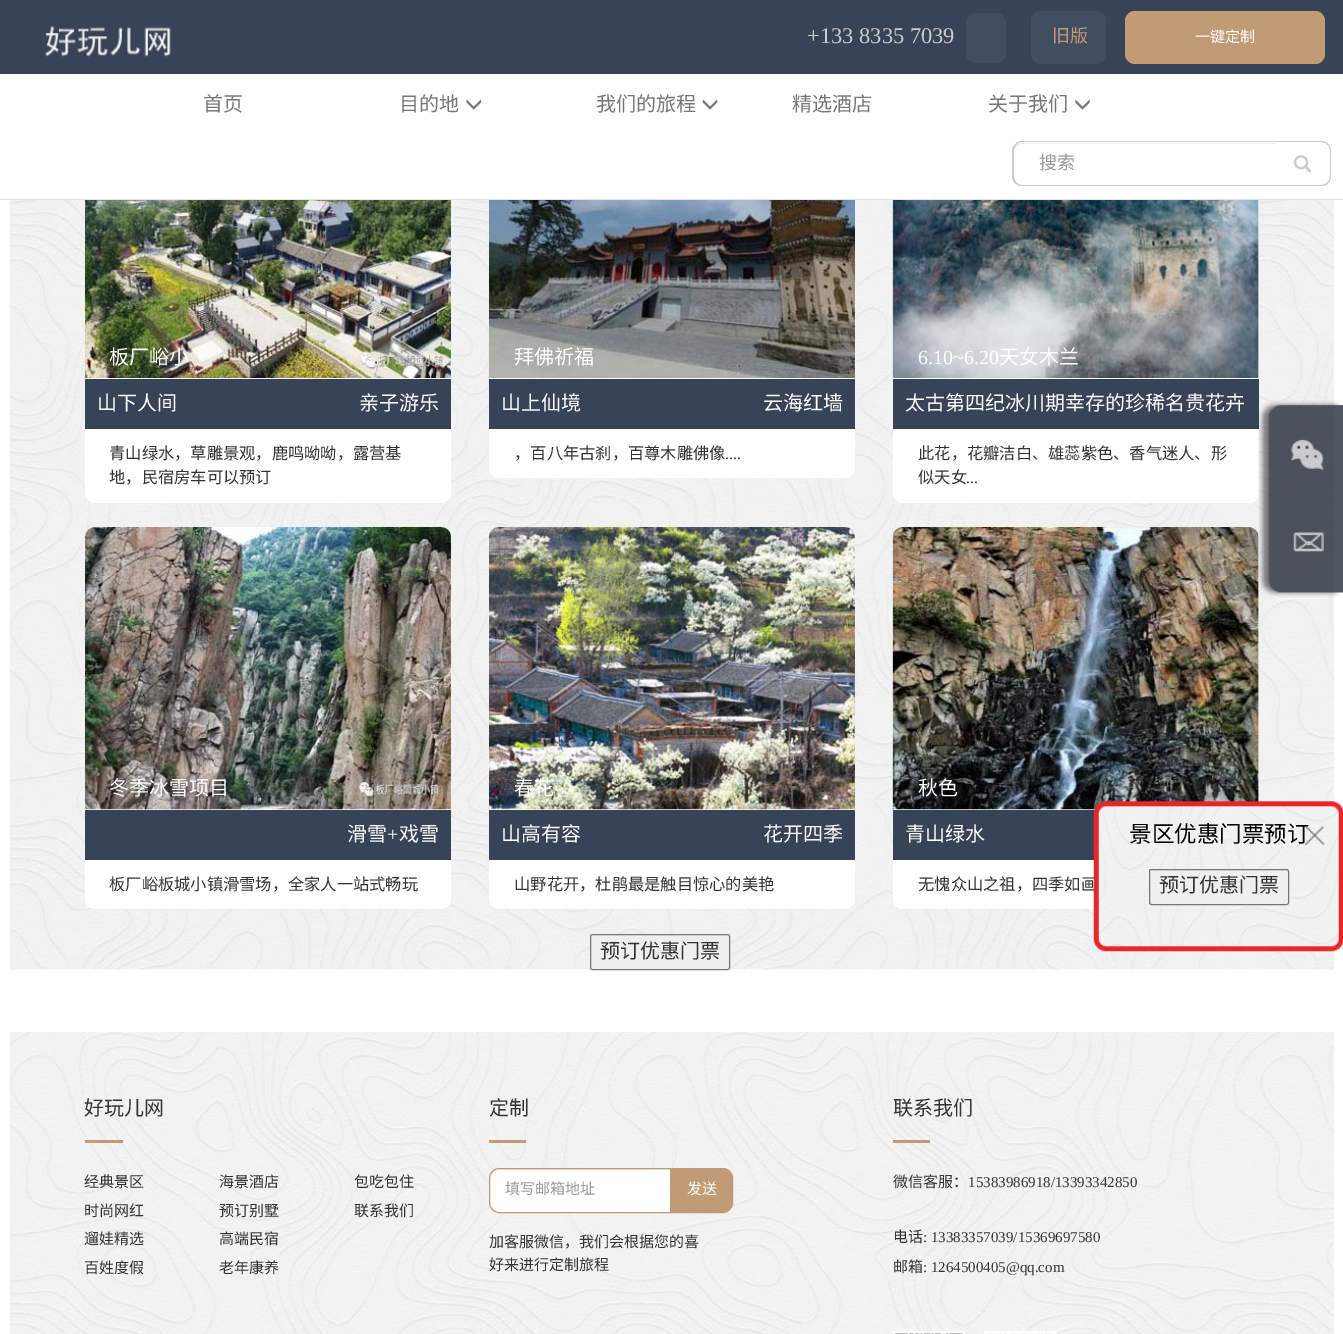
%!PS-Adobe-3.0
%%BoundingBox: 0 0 1343 1334
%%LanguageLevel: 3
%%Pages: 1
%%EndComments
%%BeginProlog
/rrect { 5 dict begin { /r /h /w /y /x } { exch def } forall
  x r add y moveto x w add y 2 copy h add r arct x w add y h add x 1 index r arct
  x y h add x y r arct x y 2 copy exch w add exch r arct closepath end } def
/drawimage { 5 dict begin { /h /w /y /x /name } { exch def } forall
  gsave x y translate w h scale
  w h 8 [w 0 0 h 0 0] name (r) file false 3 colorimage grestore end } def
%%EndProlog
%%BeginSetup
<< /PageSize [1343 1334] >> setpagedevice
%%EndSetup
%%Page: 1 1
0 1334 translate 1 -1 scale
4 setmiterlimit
1 setgray
0 0 1343 1334 rectfill
0.216 0.263 0.337 setrgbcolor
0 0 1343 74 rectfill
(images/1.raw) 44 26 127 31 drawimage
0.255 0.302 0.376 setrgbcolor
966 13 40 50 10 rrect fill
1031 11 75 53 10 rrect fill
0.757 0.608 0.463 setrgbcolor
1125 11 200 53 10 rrect fill
(images/6.raw) 10 200 1324 770 drawimage
1 setgray
85 96 366 407 10 rrect fill
489 96 366 382 10 rrect fill
893 96 366 407 10 rrect fill
0.886 setgray
0 199 1343 1 rectfill
(images/2.raw) 466 99 15 11 drawimage
(images/3.raw) 702 99 16 11 drawimage
(images/4.raw) 1075 99 15 11 drawimage
0.925 setgray
newpath 1022 144 moveto 1276 144 lineto 1276 143 lineto 1023 143 lineto 1018 143 1014 147 1014 152 curveto 1014 148 1018 144 1022 144 curveto closepath fill
0.8 setgray
newpath 1022 141 moveto 1276 141 lineto 1276 186 lineto 1022 186 lineto 1017 186 1012 182 1012 176 curveto 1012 151 lineto 1012 146 1017 141 1022 141 curveto closepath 1022 142 moveto 1276 142 lineto 1276 185 lineto 1022 185 lineto 1018 185 1014 181 1014 176 curveto 1014 151 lineto 1014 146 1018 142 1022 142 curveto closepath eofill
newpath 1275 141 moveto 1321 141 lineto 1327 141 1331 146 1331 151 curveto 1331 176 lineto 1331 182 1327 186 1321 186 curveto 1275 186 lineto closepath 1275 142 moveto 1321 142 lineto 1326 142 1330 146 1330 151 curveto 1330 176 lineto 1330 181 1326 185 1321 185 curveto 1275 185 lineto closepath eofill
(images/5.raw) 1293 155 19 18 drawimage
(images/7.raw) 85 200 366 179 drawimage
0.216 0.263 0.337 setrgbcolor
85 379 366 50 rectfill
(images/8.raw) 489 200 366 179 drawimage
489 379 366 50 rectfill
(images/9.raw) 892 200 367 179 drawimage
893 379 366 50 rectfill
1 setgray
85 528 366 381 10 rrect fill
(images/10.raw) 85 527 366 283 drawimage
0.216 0.263 0.337 setrgbcolor
85 810 366 50 rectfill
1 setgray
489 528 366 381 10 rrect fill
(images/11.raw) 489 527 366 283 drawimage
0.216 0.263 0.337 setrgbcolor
489 810 366 50 rectfill
1 setgray
893 528 366 381 10 rrect fill
(images/12.raw) 892 527 367 283 drawimage
0.216 0.263 0.337 setrgbcolor
893 810 203 50 rectfill
0.937 setgray
590.5 934.5 139 35 2 rrect gsave fill grestore
0.463 setgray
stroke
(images/13.raw) 1258 400 85 197 drawimage
(images/14.raw) 1291 439 33 32 drawimage
(images/15.raw) 1293 532 31 20 drawimage
(images/18.raw) 10 1032 1324 302 drawimage
0.753 0.608 0.459 setrgbcolor
85 1140 38 3 rectfill
489 1140 37 3 rectfill
1 setgray
newpath 499 1168 moveto 671 1168 lineto 671 1213 lineto 499 1213 lineto 493.5 1213 489 1208.5 489 1203 curveto 489 1178 lineto 489 1172.5 493.5 1168 499 1168 curveto closepath fill
0.925 setgray
newpath 499 1170 moveto 670 1170 lineto 670 1169 lineto 499 1169 lineto 494 1169 490 1173 490 1178 curveto 490 1179 lineto 490 1174 494 1170 499 1170 curveto closepath fill
0.753 0.608 0.459 setrgbcolor
newpath 499 1168.5 moveto 670.5 1168.5 lineto 670.5 1212.5 lineto 499 1212.5 lineto 494 1212.5 489.5 1208 489.5 1203 curveto 489.5 1178 lineto 489.5 1173 494 1168.5 499 1168.5 curveto closepath stroke
newpath 670.5 1168.5 moveto 723 1168.5 lineto 728 1168.5 732.5 1173 732.5 1178 curveto 732.5 1203 lineto 732.5 1208 728 1212.5 723 1212.5 curveto 670.5 1212.5 lineto closepath gsave fill grestore
stroke
893 1140 37 3 rectfill
(images/19.raw) 892 1330 73 4 drawimage
(images/20.raw) 984 1330 74 4 drawimage
/LiberationSerif-Regular [22.5 0 0 -22.5 0 0] selectfont
0.8 setgray
807 43 moveto (+133 8335 7039) show
/NotoSansCJKSC-Regular [18 0 0 -18 0 0] selectfont
0.753 0.608 0.459 setrgbcolor
1052 42 moveto (旧版) show
/NotoSansCJKSC-Regular [15 0 0 -15 0 0] selectfont
1 setgray
1195 42 moveto (一键定制) show
/NotoSansCJKSC-Regular [20 0 0 -20 0 0] selectfont
0.467 setgray
203 111 moveto (首页) show
399 111 moveto (目的地) show
596 111 moveto (我们的旅程) show
792 111 moveto (精选酒店) show
988 111 moveto (关于我们) show
/NotoSansCJKSC-Regular [18 0 0 -18 0 0] selectfont
0.6 setgray
1039 169 moveto (搜索) show
/NotoSansCJKSC-Regular [20 0 0 -20 0 0] selectfont
1 setgray
109 364 moveto (板厂峪小) show
97 410 moveto (山下人间) show
359 410 moveto (亲子游乐) show
/NotoSansCJKSC-Regular [16.25 0 0 -16.25 0 0] selectfont
0.2 setgray
109 459 moveto (青山绿水，草雕景观，鹿鸣呦呦，露营基) show
109 483 moveto (地，民宿房车可以预订) show
/NotoSansCJKSC-Regular [20 0 0 -20 0 0] selectfont
1 setgray
514 364 moveto (拜佛祈福) show
501 410 moveto (山上仙境) show
763 410 moveto (云海红墙) show
/NotoSansCJKSC-Regular [16.25 0 0 -16.25 0 0] selectfont
0.2 setgray
514 459 moveto (，百八年古刹，百尊木雕佛像) show
/LiberationSerif-Regular [16.25 0 0 -16.25 0 0] selectfont
725 459 moveto (....) show
/LiberationSerif-Regular [20 0 0 -20 0 0] selectfont
1 setgray
918 364 moveto (6.10~6.20) show
/NotoSansCJKSC-Regular [20 0 0 -20 0 0] selectfont
999 364 moveto (天女木兰) show
905 410 moveto (太古第四纪冰川期幸存的珍稀名贵花卉) show
/NotoSansCJKSC-Regular [16.25 0 0 -16.25 0 0] selectfont
0.2 setgray
918 459 moveto (此花，花瓣洁白、雄蕊紫色、香气迷人、形) show
918 483 moveto (似天女) show
/LiberationSerif-Regular [16.25 0 0 -16.25 0 0] selectfont
966 483 moveto (...) show
/NotoSansCJKSC-Regular [20 0 0 -20 0 0] selectfont
1 setgray
109 795 moveto (冬季冰雪项目) show
347 841 moveto (滑雪) show
/LiberationSerif-Regular [20 0 0 -20 0 0] selectfont
387 841 moveto (+) show
/NotoSansCJKSC-Regular [20 0 0 -20 0 0] selectfont
399 841 moveto (戏雪) show
/NotoSansCJKSC-Regular [16.25 0 0 -16.25 0 0] selectfont
0.2 setgray
109 890 moveto (板厂峪板城小镇滑雪场，全家人一站式畅玩) show
/NotoSansCJKSC-Regular [20 0 0 -20 0 0] selectfont
1 setgray
514 795 moveto (春花) show
501 841 moveto (山高有容) show
763 841 moveto (花开四季) show
/NotoSansCJKSC-Regular [16.25 0 0 -16.25 0 0] selectfont
0.2 setgray
514 890 moveto (山野花开，杜鹃最是触目惊心的美艳) show
/NotoSansCJKSC-Regular [20 0 0 -20 0 0] selectfont
1 setgray
918 795 moveto (秋色) show
905 841 moveto (青山绿水) show
/NotoSansCJKSC-Regular [16.25 0 0 -16.25 0 0] selectfont
0.2 setgray
918 890 moveto (无愧众山之祖，四季如画) show
/NotoSansCJKSC-Regular [20 0 0 -20 0 0] selectfont
600 958 moveto (预订优惠门票) show
(images/16.raw) 1093 801 250 151 drawimage
/NotoSansCJKSC-Regular [22.5 0 0 -22.5 0 0] selectfont
0 setgray
1129 842 moveto (景区优惠门票预订) show
(images/17.raw) 1305 826 20 19 drawimage
0.937 setgray
1149.5 869.5 139 35 2 rrect gsave fill grestore
0.463 setgray
stroke
/NotoSansCJKSC-Regular [20 0 0 -20 0 0] selectfont
0.2 setgray
1159 892 moveto (预订优惠门票) show
84 1115 moveto (好玩儿网) show
/NotoSansCJKSC-Regular [15 0 0 -15 0 0] selectfont
84 1187 moveto (经典景区) show
84 1216 moveto (时尚网红) show
84 1244 moveto (遛娃精选) show
84 1273 moveto (百姓度假) show
219 1187 moveto (海景酒店) show
219 1216 moveto (预订别墅) show
219 1244 moveto (高端民宿) show
219 1273 moveto (老年康养) show
354 1187 moveto (包吃包住) show
354 1216 moveto (联系我们) show
/NotoSansCJKSC-Regular [20 0 0 -20 0 0] selectfont
489 1115 moveto (定制) show
/NotoSansCJKSC-Regular [15 0 0 -15 0 0] selectfont
0.6 setgray
505 1194 moveto (填写邮箱地址) show
1 setgray
687 1194 moveto (发送) show
0.2 setgray
489 1247 moveto (加客服微信，我们会根据您的喜) show
489 1270 moveto (好来进行定制旅程) show
/NotoSansCJKSC-Regular [20 0 0 -20 0 0] selectfont
893 1115 moveto (联系我们) show
/NotoSansCJKSC-Regular [15 0 0 -15 0 0] selectfont
893 1187 moveto (微信客服：) show
/LiberationSerif-Regular [15 0 0 -15 0 0] selectfont
968 1187 moveto (15383986918/13393342850) show
/NotoSansCJKSC-Regular [15 0 0 -15 0 0] selectfont
893 1242 moveto (电话) show
/LiberationSerif-Regular [15 0 0 -15 0 0] selectfont
923 1242 moveto (: 13383357039/15369697580) show
/NotoSansCJKSC-Regular [15 0 0 -15 0 0] selectfont
893 1272 moveto (邮箱) show
/LiberationSerif-Regular [15 0 0 -15 0 0] selectfont
923 1272 moveto (: 1264500405@qq.com) show
showpage
%%EOF
